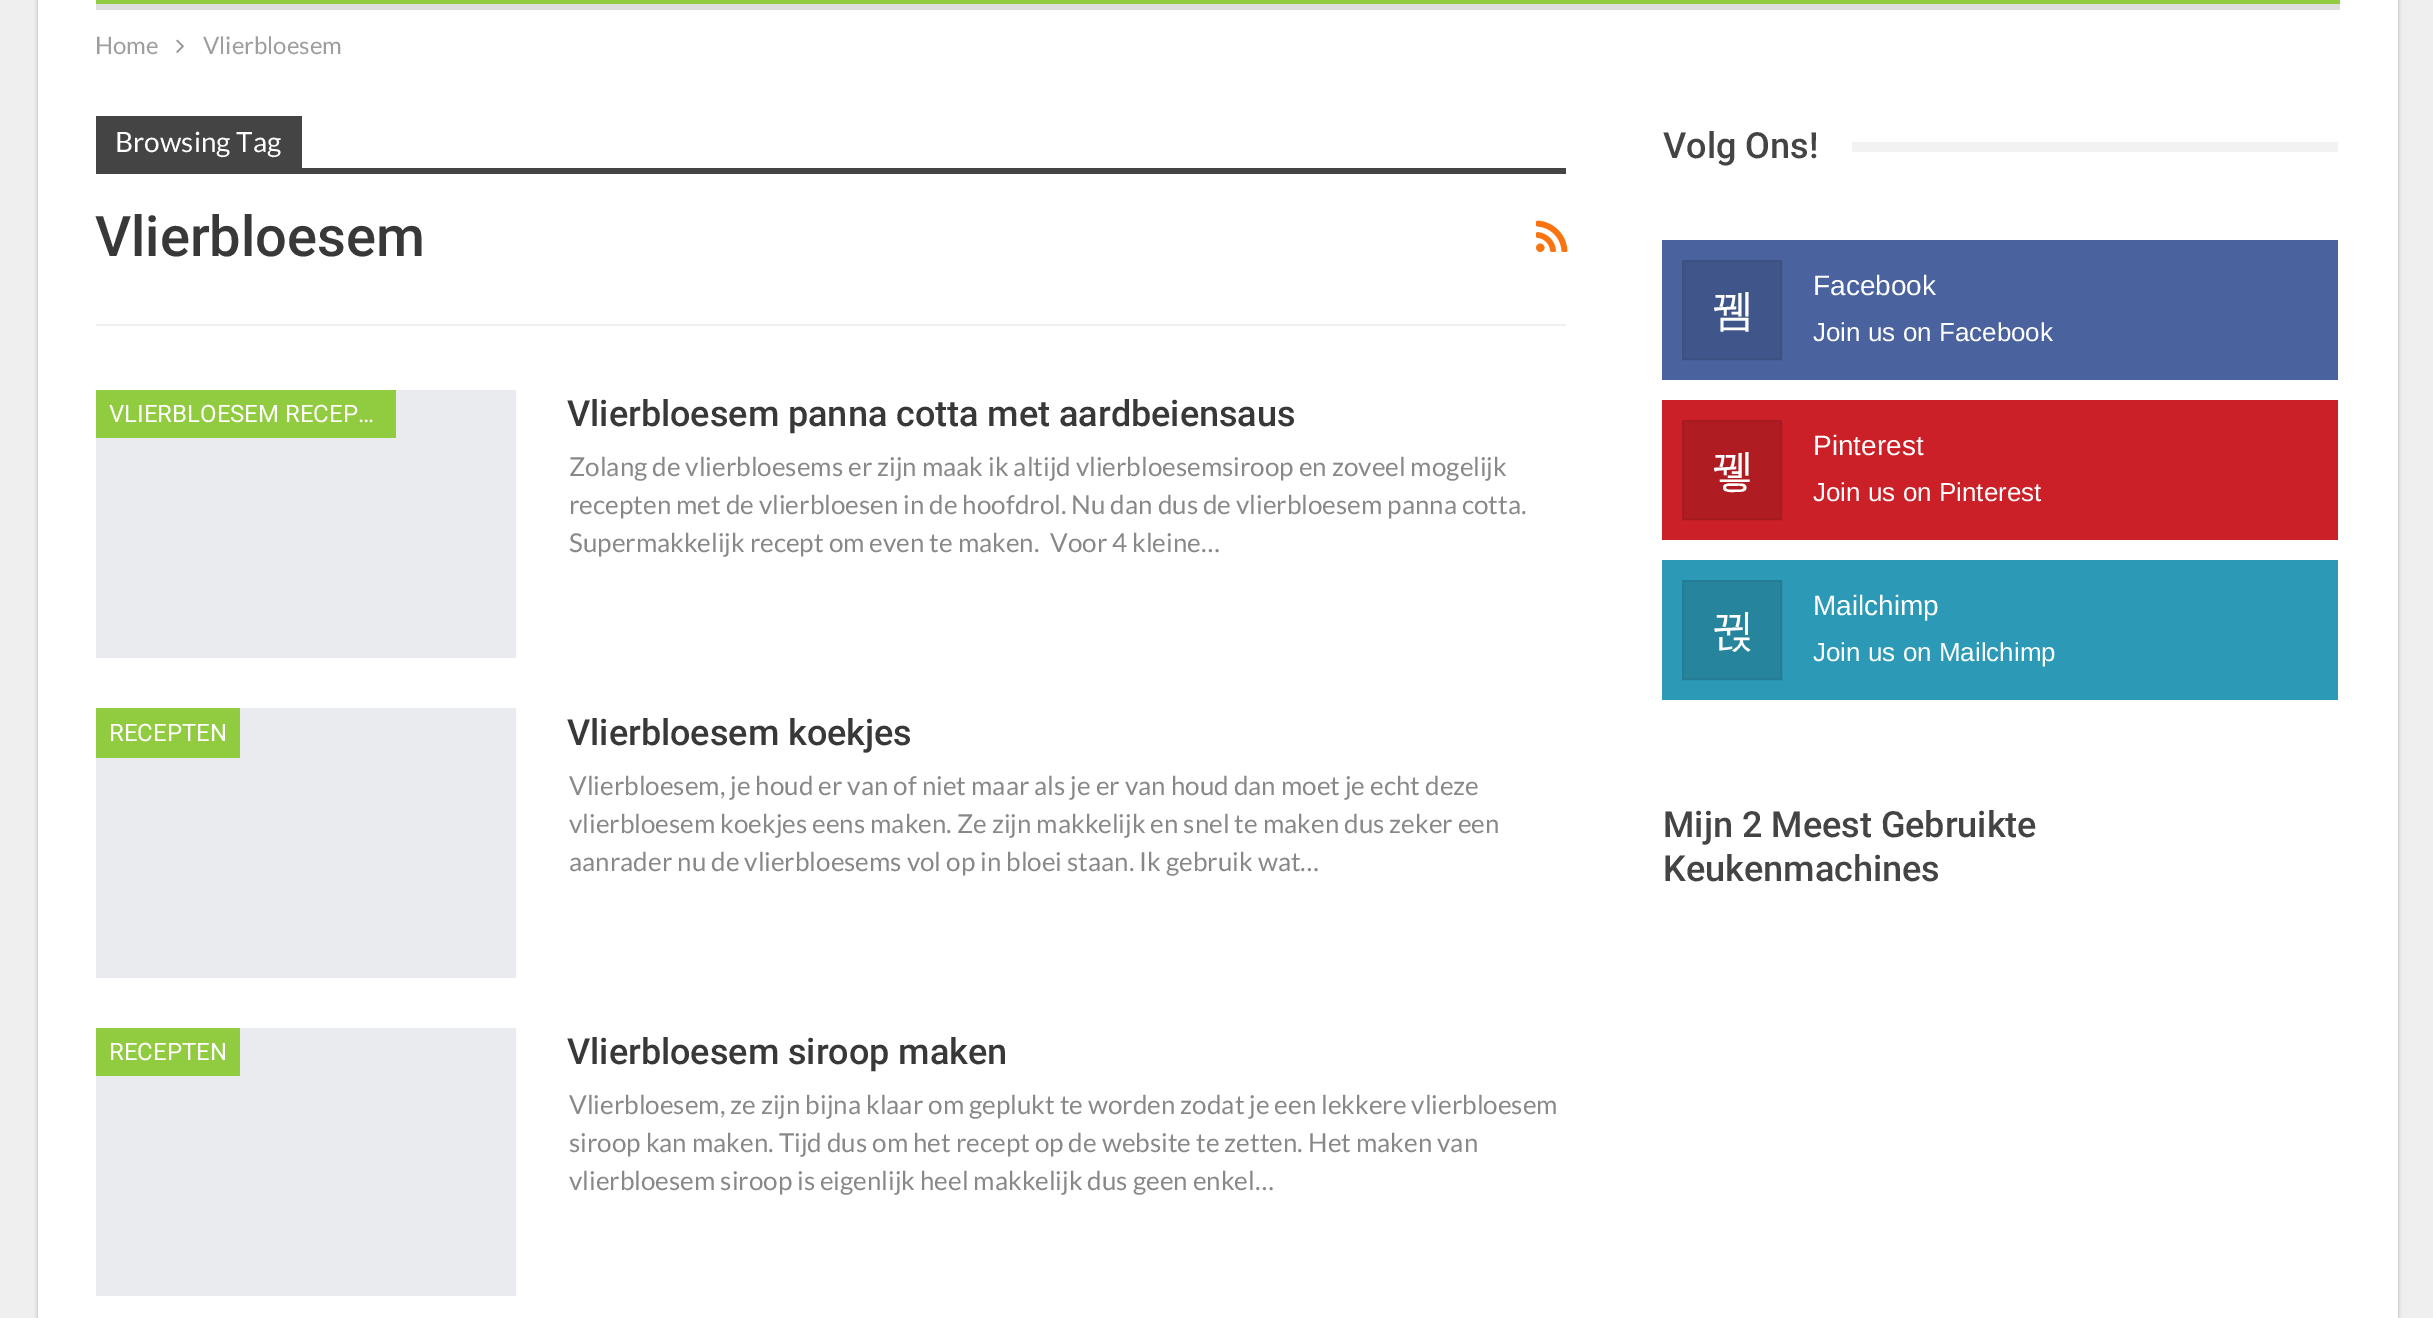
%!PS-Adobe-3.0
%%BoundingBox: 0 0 2433 1318
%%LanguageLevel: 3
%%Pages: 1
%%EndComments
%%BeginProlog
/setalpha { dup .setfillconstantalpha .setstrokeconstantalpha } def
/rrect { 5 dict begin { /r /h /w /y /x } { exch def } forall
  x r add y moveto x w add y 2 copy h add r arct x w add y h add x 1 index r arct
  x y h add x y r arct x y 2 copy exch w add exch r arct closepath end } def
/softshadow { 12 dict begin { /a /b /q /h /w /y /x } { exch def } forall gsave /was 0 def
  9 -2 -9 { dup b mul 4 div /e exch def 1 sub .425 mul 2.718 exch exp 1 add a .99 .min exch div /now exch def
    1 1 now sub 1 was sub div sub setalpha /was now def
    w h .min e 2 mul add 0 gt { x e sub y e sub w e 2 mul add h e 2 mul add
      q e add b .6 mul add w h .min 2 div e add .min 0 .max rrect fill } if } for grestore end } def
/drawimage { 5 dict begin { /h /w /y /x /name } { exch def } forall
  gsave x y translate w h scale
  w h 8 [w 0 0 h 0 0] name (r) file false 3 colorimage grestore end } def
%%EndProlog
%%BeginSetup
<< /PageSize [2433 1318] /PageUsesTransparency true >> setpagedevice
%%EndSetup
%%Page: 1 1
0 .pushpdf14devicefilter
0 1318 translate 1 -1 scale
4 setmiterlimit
0.937 setgray
0 0 2433 1318 rectfill
0 setgray
38 -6 2360 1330 0 2 0.27 softshadow
1 setgray
38 0 2360 1318 rectfill
0.569 0.796 0.251 setrgbcolor
96 0 2244 4 rectfill
0.871 setgray
96 4 2244 6 rectfill
(images/1.raw) 176 39 8 14 drawimage
0.941 setgray
96 324 1470 2 rectfill
0.267 setgray
96 116 206 52 rectfill
96 168 1470 6 rectfill
(images/2.raw) 1536 220 32 32 drawimage
0.914 0.922 0.933 setrgbcolor
96 390 420 268 rectfill
0.569 0.796 0.251 setrgbcolor
96 390 300 48 rectfill
0.914 0.922 0.933 setrgbcolor
96 708 420 270 rectfill
0.569 0.796 0.251 setrgbcolor
96 708 144 50 rectfill
0.914 0.922 0.933 setrgbcolor
96 1028 420 268 rectfill
0.569 0.796 0.251 setrgbcolor
96 1028 144 48 rectfill
0.949 setgray
1852 142 486 10 rectfill
0.29 0.388 0.624 setrgbcolor
1662 240 676 140 rectfill
0.251 0.333 0.537 setrgbcolor
newpath 1683 261 moveto 1781 261 lineto 1781 359 lineto 1683 359 lineto closepath gsave fill grestore
0.239 0.318 0.51 setrgbcolor
2 setlinewidth
stroke
0.796 0.125 0.153 setrgbcolor
1662 400 676 140 rectfill
0.686 0.11 0.133 setrgbcolor
newpath 1683 421 moveto 1781 421 lineto 1781 519 lineto 1683 519 lineto closepath gsave fill grestore
0.651 0.106 0.125 setrgbcolor
stroke
0.173 0.604 0.718 setrgbcolor
1662 560 676 140 rectfill
0.149 0.518 0.616 setrgbcolor
newpath 1683 581 moveto 1781 581 lineto 1781 679 lineto 1683 679 lineto closepath gsave fill grestore
0.141 0.49 0.584 setrgbcolor
stroke
/Lato-Regular [24 0 0 -24 0 0] selectfont
0.62 setgray
95 54 moveto (Home) show
203 54 moveto (Vlierbloesem) show
/Lato-Regular [28 0 0 -28 0 0] selectfont
1 setgray
115 152 moveto (Browsing Tag) show
/Roboto-Medium [56 0 0 -56 0 0] selectfont
0.22 setgray
95 256 moveto (Vlierbloesem) show
/Roboto-Regular [24 0 0 -24 0 0] selectfont
1 setgray
109 422 moveto (VLIERBLOESEM RECEP…) show
/Roboto-Medium [36 0 0 -36 0 0] selectfont
0.22 setgray
567 426 moveto (Vlierbloesem panna cotta met aardbeiensaus) show
/Lato-Regular [26 0 0 -26 0 0] selectfont
0.533 setgray
569 476 moveto (Zolang de vlierbloesems er zijn maak ik altijd vlierbloesemsiroop en zoveel mogelijk) show
569 514 moveto (recepten met de vlierbloesen in de hoofdrol. Nu dan dus de vlierbloesem panna cotta.) show
569 552 moveto (Supermakkelijk recept om even te maken.) show
1050 552 moveto (Voor 4 kleine…) show
/Roboto-Regular [24 0 0 -24 0 0] selectfont
1 setgray
109 741 moveto (RECEPTEN) show
/Roboto-Medium [36 0 0 -36 0 0] selectfont
0.22 setgray
567 745 moveto (Vlierbloesem koekjes) show
/Lato-Regular [26 0 0 -26 0 0] selectfont
0.533 setgray
569 795 moveto (Vlierbloesem, je houd er van of niet maar als je er van houd dan moet je echt deze) show
569 833 moveto (vlierbloesem koekjes eens maken. Ze zijn makkelijk en snel te maken dus zeker een) show
569 871 moveto (aanrader nu de vlierbloesems vol op in bloei staan. Ik gebruik wat…) show
/Roboto-Regular [24 0 0 -24 0 0] selectfont
1 setgray
109 1060 moveto (RECEPTEN) show
/Roboto-Medium [36 0 0 -36 0 0] selectfont
0.22 setgray
567 1064 moveto (Vlierbloesem siroop maken) show
/Lato-Regular [26 0 0 -26 0 0] selectfont
0.533 setgray
569 1114 moveto (Vlierbloesem, ze zijn bijna klaar om geplukt te worden zodat je een lekkere vlierbloesem) show
569 1152 moveto (siroop kan maken. Tijd dus om het recept op de website te zetten. Het maken van) show
569 1190 moveto (vlierbloesem siroop is eigenlijk heel makkelijk dus geen enkel…) show
/Roboto-Medium [36 0 0 -36 0 0] selectfont
0.267 setgray
1663 158 moveto (Volg Ons!) show
/LiberationSans-Regular [28 0 0 -28 0 0] selectfont
1 setgray
1813 295 moveto (Facebook) show
/WenQuanYiZenHei-Medium [44 0 0 -44 0 0] selectfont
1711 325 moveto (뀀) show
/LiberationSans-Regular [26 0 0 -26 0 0] selectfont
1813 341 moveto (Join us on Facebook) show
/LiberationSans-Regular [28 0 0 -28 0 0] selectfont
1813 455 moveto (Pinterest) show
/WenQuanYiZenHei-Medium [44 0 0 -44 0 0] selectfont
1711 485 moveto (뀋) show
/LiberationSans-Regular [26 0 0 -26 0 0] selectfont
1813 501 moveto (Join us on Pinterest) show
/LiberationSans-Regular [28 0 0 -28 0 0] selectfont
1813 615 moveto (Mailchimp) show
/WenQuanYiZenHei-Medium [44 0 0 -44 0 0] selectfont
1711 645 moveto (뀑) show
/LiberationSans-Regular [26 0 0 -26 0 0] selectfont
1813 661 moveto (Join us on Mailchimp) show
/Roboto-Medium [36 0 0 -36 0 0] selectfont
0.267 setgray
1663 837 moveto (Mijn 2 Meest Gebruikte) show
1663 881 moveto (Keukenmachines) show
.poppdf14devicefilter showpage
%%EOF
